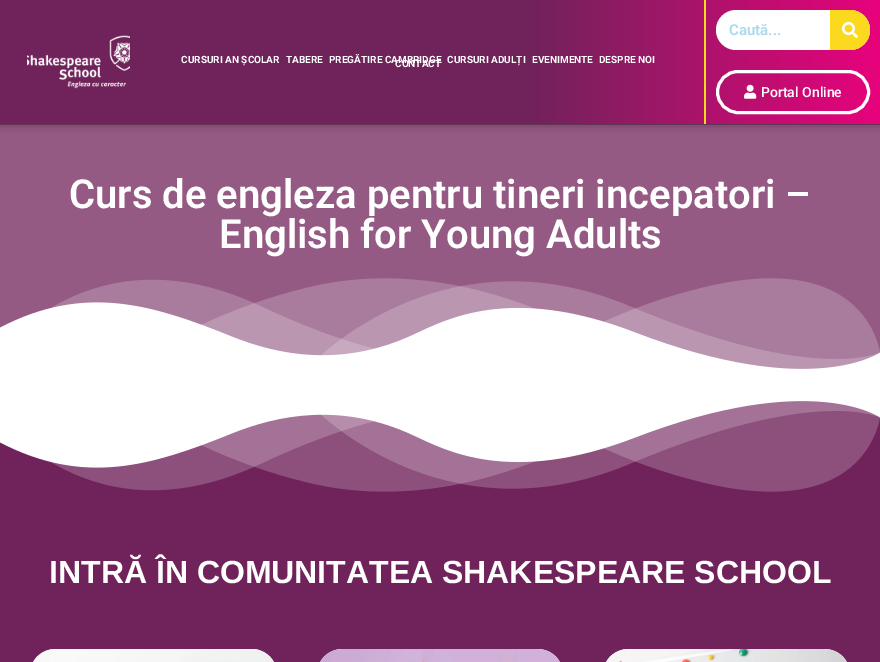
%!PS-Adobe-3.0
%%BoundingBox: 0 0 880 662
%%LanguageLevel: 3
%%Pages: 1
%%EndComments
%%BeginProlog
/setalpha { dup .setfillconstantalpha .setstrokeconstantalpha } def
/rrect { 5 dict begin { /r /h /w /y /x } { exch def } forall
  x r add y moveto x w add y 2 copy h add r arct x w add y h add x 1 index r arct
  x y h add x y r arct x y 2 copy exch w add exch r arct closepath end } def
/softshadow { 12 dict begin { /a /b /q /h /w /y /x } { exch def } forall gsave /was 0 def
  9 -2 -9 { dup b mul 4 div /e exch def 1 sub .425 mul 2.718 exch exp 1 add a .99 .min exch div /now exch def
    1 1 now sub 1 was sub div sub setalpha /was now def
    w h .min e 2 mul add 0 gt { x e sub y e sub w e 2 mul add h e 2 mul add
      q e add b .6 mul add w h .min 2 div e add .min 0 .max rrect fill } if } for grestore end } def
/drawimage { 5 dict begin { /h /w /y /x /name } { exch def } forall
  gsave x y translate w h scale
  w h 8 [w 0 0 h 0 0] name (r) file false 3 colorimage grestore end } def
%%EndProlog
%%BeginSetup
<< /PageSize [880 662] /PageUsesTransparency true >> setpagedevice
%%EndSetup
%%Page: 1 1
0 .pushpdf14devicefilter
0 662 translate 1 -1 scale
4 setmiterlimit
1 setgray
0 0 880 662 rectfill
0.439 0.137 0.357 setrgbcolor
0 124 880 1 rectfill
0.302 setgray
0 0 880 124 0 5 1 softshadow
gsave newpath 0 0 moveto 880 0 lineto 880 124 lineto 0 124 lineto closepath clip newpath
<< /ShadingType 2 /ColorSpace /DeviceRGB /Coords [0 62 880 62] /Extend [true true] /Function << /FunctionType 3 /Domain [0 1] /Functions [<< /FunctionType 2 /Domain [0 1] /C0 [0.439 0.137 0.357] /C1 [0.439 0.137 0.357] /N 1 >> << /FunctionType 2 /Domain [0 1] /C0 [0.439 0.137 0.357] /C1 [0.91 0.008 0.486] /N 1 >>] /Bounds [0.6] /Encode [0 1 0 1] >> >> shfill grestore
(images/1.raw) 27 35 103 54 drawimage
0.984 0.851 0.122 setrgbcolor
704 0 2 124 rectfill
1 setgray
716 10 154 40 20 rrect fill
0.984 0.851 0.122 setrgbcolor
newpath 830 10 moveto 850 10 lineto 861 10 870 19 870 30 curveto 870 41 861 50 850 50 curveto 830 50 lineto closepath fill
(images/2.raw) 842 22 16 16 drawimage
1 setgray
3 setlinewidth
717.5 71.5 151 41 20.5 rrect stroke
(images/3.raw) 744 84 13 15 drawimage
0.75 setalpha
0.439 0.137 0.357 setrgbcolor
0 125 880 244 rectfill
1 setalpha
(images/4.raw) 0 278 880 97 drawimage
0 401 880 261 rectfill
(images/5.raw) 0 395 880 97 drawimage
1 setgray
30 649 247 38 25 rrect fill
(images/6.raw) 33 649 241 13 drawimage
317 649 246 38 25 rrect fill
(images/7.raw) 320 649 240 13 drawimage
603 649 247 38 25 rrect fill
(images/8.raw) 606 649 241 13 drawimage
/Roboto-Bold [10 0 0 -10 0 0] selectfont
181 63 moveto (CURSURI AN ȘCOLAR) show
286 63 moveto (TABERE) show
329 63 moveto (PREGĂTIRE CAMBRIDGE) show
447 63 moveto (CURSURI ADULȚI) show
532 63 moveto (EVENIMENTE) show
599 63 moveto (DESPRE NOI) show
395 67 moveto (CONTACT) show
/Roboto-SemiBold [15 0 0 -15 0 0] selectfont
0.659 0.855 0.937 setrgbcolor
729 35 moveto (Caută...) show
/Roboto-Medium [14 0 0 -14 0 0] selectfont
1 setgray
761 97 moveto (Portal Online) show
/Roboto-SemiBold [40 0 0 -40 0 0] selectfont
69 208 moveto (Curs de engleza pentru tineri incepatori –) show
219 248 moveto (English for Young Adults) show
/LiberationSans-Bold [32 0 0 -32 0 0] selectfont
49 583 moveto (INTRĂ ÎN COMUNITATEA SHAKESPEARE SCHOOL) show
.poppdf14devicefilter showpage
%%EOF
